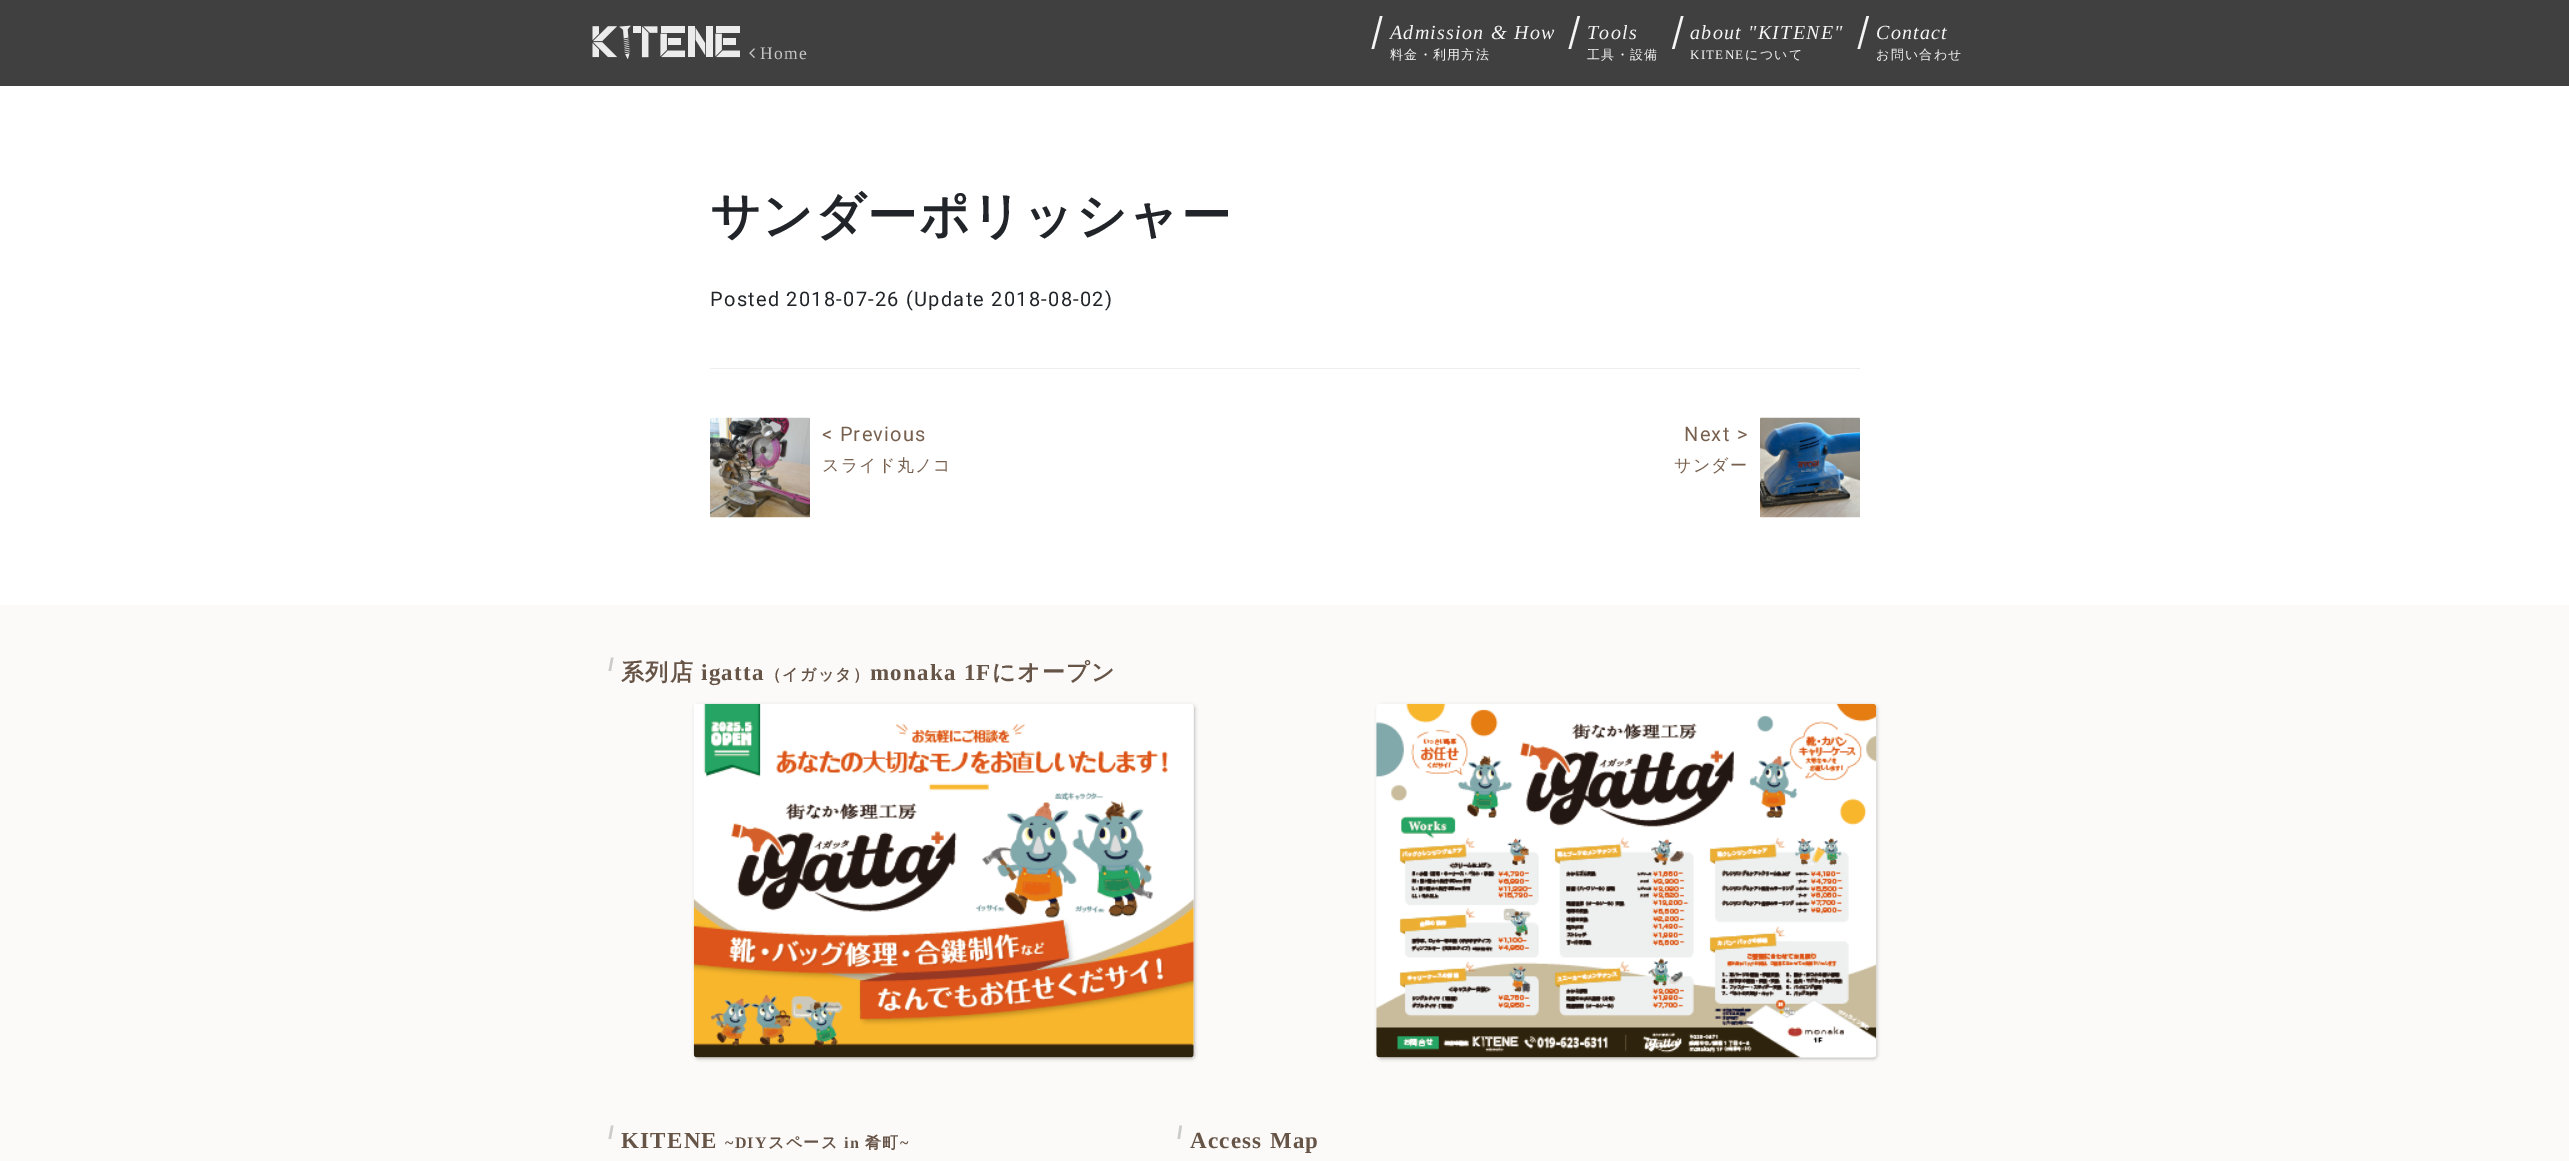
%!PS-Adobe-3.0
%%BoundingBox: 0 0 2569 1161
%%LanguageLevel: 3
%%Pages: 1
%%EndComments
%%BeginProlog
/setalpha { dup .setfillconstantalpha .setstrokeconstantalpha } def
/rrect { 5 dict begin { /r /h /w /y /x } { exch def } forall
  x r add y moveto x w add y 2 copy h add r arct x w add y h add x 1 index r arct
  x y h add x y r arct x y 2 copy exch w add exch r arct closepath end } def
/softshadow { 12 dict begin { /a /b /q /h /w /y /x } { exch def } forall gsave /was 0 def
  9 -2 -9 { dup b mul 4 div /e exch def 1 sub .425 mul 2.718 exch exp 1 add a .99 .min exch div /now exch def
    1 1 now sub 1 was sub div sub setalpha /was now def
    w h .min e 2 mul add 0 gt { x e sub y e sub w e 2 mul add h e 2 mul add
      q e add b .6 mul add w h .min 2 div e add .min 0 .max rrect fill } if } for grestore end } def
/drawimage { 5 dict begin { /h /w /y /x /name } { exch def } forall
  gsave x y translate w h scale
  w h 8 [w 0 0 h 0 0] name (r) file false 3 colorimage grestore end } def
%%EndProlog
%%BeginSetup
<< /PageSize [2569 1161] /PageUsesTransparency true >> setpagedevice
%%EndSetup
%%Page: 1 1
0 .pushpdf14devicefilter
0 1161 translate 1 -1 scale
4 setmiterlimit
1 setgray
0 0 2569 1161 rectfill
0.251 setgray
0 0 2569 86 rectfill
(images/1.raw) 592 25 148 34 drawimage
(images/2.raw) 749 48 6 10 drawimage
0.961 setgray
newpath 1380 16 moveto 1382.5 16 lineto 1374 49 lineto 1371.5 49 lineto closepath fill
newpath 1577.5 16 moveto 1580 16 lineto 1571 49 lineto 1568.5 49 lineto closepath fill
newpath 1681 16 moveto 1683.5 16 lineto 1674.5 49 lineto 1672 49 lineto closepath fill
newpath 1866.5 16 moveto 1869 16 lineto 1860 49 lineto 1857.5 49 lineto closepath fill
0.933 setgray
710 368 1150 1 rectfill
(images/3.raw) 710 417 100 101 drawimage
(images/4.raw) 1760 417 100 101 drawimage
0.984 0.98 0.976 setrgbcolor
0 605 2569 556 rectfill
0.8 setgray
newpath 611 657.5 moveto 613.5 657.5 lineto 611 671 lineto 608.5 671 lineto closepath fill
0.6 setgray
696 706 498 352 2.5 2 1 softshadow
(images/5.raw) 693 703 501 355 drawimage
1379 706 497 352 2.5 2 1 softshadow
(images/6.raw) 1376 703 501 355 drawimage
0.8 setgray
newpath 611 1125.5 moveto 613.5 1125.5 lineto 611 1139 lineto 608.5 1139 lineto closepath fill
newpath 1179.5 1125.5 moveto 1182 1125.5 lineto 1180 1139 lineto 1177.5 1139 lineto closepath fill
/LiberationSerif-Regular [17.5 0 0 -17.5 0 0] selectfont
0.776 setgray
760 59 moveto 1.25 0 (Home) ashow
/LiberationSerif-Italic [20 0 0 -20 0 0] selectfont
0.961 setgray
1390 39 moveto 1.25 0 (Admission & How) ashow
/WenQuanYiZenHei-Medium [13 0 0 -13 0 0] selectfont
1390 59 moveto 1.25 0 (料金・利用方法) ashow
/LiberationSerif-Italic [20 0 0 -20 0 0] selectfont
1587 39 moveto 1.25 0 (Tools) ashow
/WenQuanYiZenHei-Medium [13 0 0 -13 0 0] selectfont
1587 59 moveto 1.25 0 (工具・設備) ashow
/LiberationSerif-Italic [20 0 0 -20 0 0] selectfont
1690 39 moveto 1.25 0 (about "KITENE") ashow
/LiberationSerif-Regular [13 0 0 -13 0 0] selectfont
1690 59 moveto 1.25 0 (KITENE) ashow
/WenQuanYiZenHei-Medium [13 0 0 -13 0 0] selectfont
1745 59 moveto 1.25 0 (について) ashow
/LiberationSerif-Italic [20 0 0 -20 0 0] selectfont
1876 39 moveto 1.25 0 (Contact) ashow
/WenQuanYiZenHei-Medium [13 0 0 -13 0 0] selectfont
1876 59 moveto 1.25 0 (お問い合わせ) ashow
/WenQuanYiZenHei-Bold [50 0 0 -50 0 0] selectfont
0.129 0.145 0.161 setrgbcolor
710 233 moveto 1.25 0 (サンダーポリッシャー) ashow
/Roboto-Regular [20 0 0 -20 0 0] selectfont
710 306 moveto 1.25 0 (Posted 2018-07-26 \(Update 2018-08-02\)) ashow
0.471 0.376 0.31 setrgbcolor
822 441 moveto 1.25 0 (< Previous) ashow
/WenQuanYiZenHei-Medium [17 0 0 -17 0 0] selectfont
822 471 moveto 1.25 0 (スライド丸ノコ) ashow
/Roboto-Regular [20 0 0 -20 0 0] selectfont
1684 441 moveto 1.25 0 (Next >) ashow
/WenQuanYiZenHei-Medium [17 0 0 -17 0 0] selectfont
1674 471 moveto 1.25 0 (サンダー) ashow
/WenQuanYiZenHei-Bold [23 0 0 -23 0 0] selectfont
0.4 0.329 0.278 setrgbcolor
621 680 moveto 1.25 0 (系列店) ashow
/LiberationSerif-Bold [23 0 0 -23 0 0] selectfont
701 680 moveto 1.25 0 (igatta) ashow
/WenQuanYiZenHei-Bold [16 0 0 -16 0 0] selectfont
765 680 moveto 1.25 0 (（イガッタ）) ashow
/LiberationSerif-Bold [23 0 0 -23 0 0] selectfont
870 680 moveto 1.25 0 (monaka 1F) ashow
/WenQuanYiZenHei-Bold [23 0 0 -23 0 0] selectfont
992 680 moveto 1.25 0 (にオープン) ashow
/LiberationSerif-Bold [23 0 0 -23 0 0] selectfont
621 1148 moveto 1.25 0 (KITENE) ashow
/LiberationSerif-Bold [16 0 0 -16 0 0] selectfont
725 1148 moveto 1.25 0 (~DIY) ashow
/WenQuanYiZenHei-Bold [16 0 0 -16 0 0] selectfont
768 1148 moveto 1.25 0 (スペース) ashow
/LiberationSerif-Bold [16 0 0 -16 0 0] selectfont
844 1148 moveto 1.25 0 (in) ashow
/WenQuanYiZenHei-Bold [16 0 0 -16 0 0] selectfont
865 1148 moveto 1.25 0 (肴町) ashow
/LiberationSerif-Bold [16 0 0 -16 0 0] selectfont
900 1148 moveto 1.25 0 (~) ashow
/LiberationSerif-Bold [23 0 0 -23 0 0] selectfont
1190 1148 moveto 1.25 0 (Access Map) ashow
.poppdf14devicefilter showpage
%%EOF
